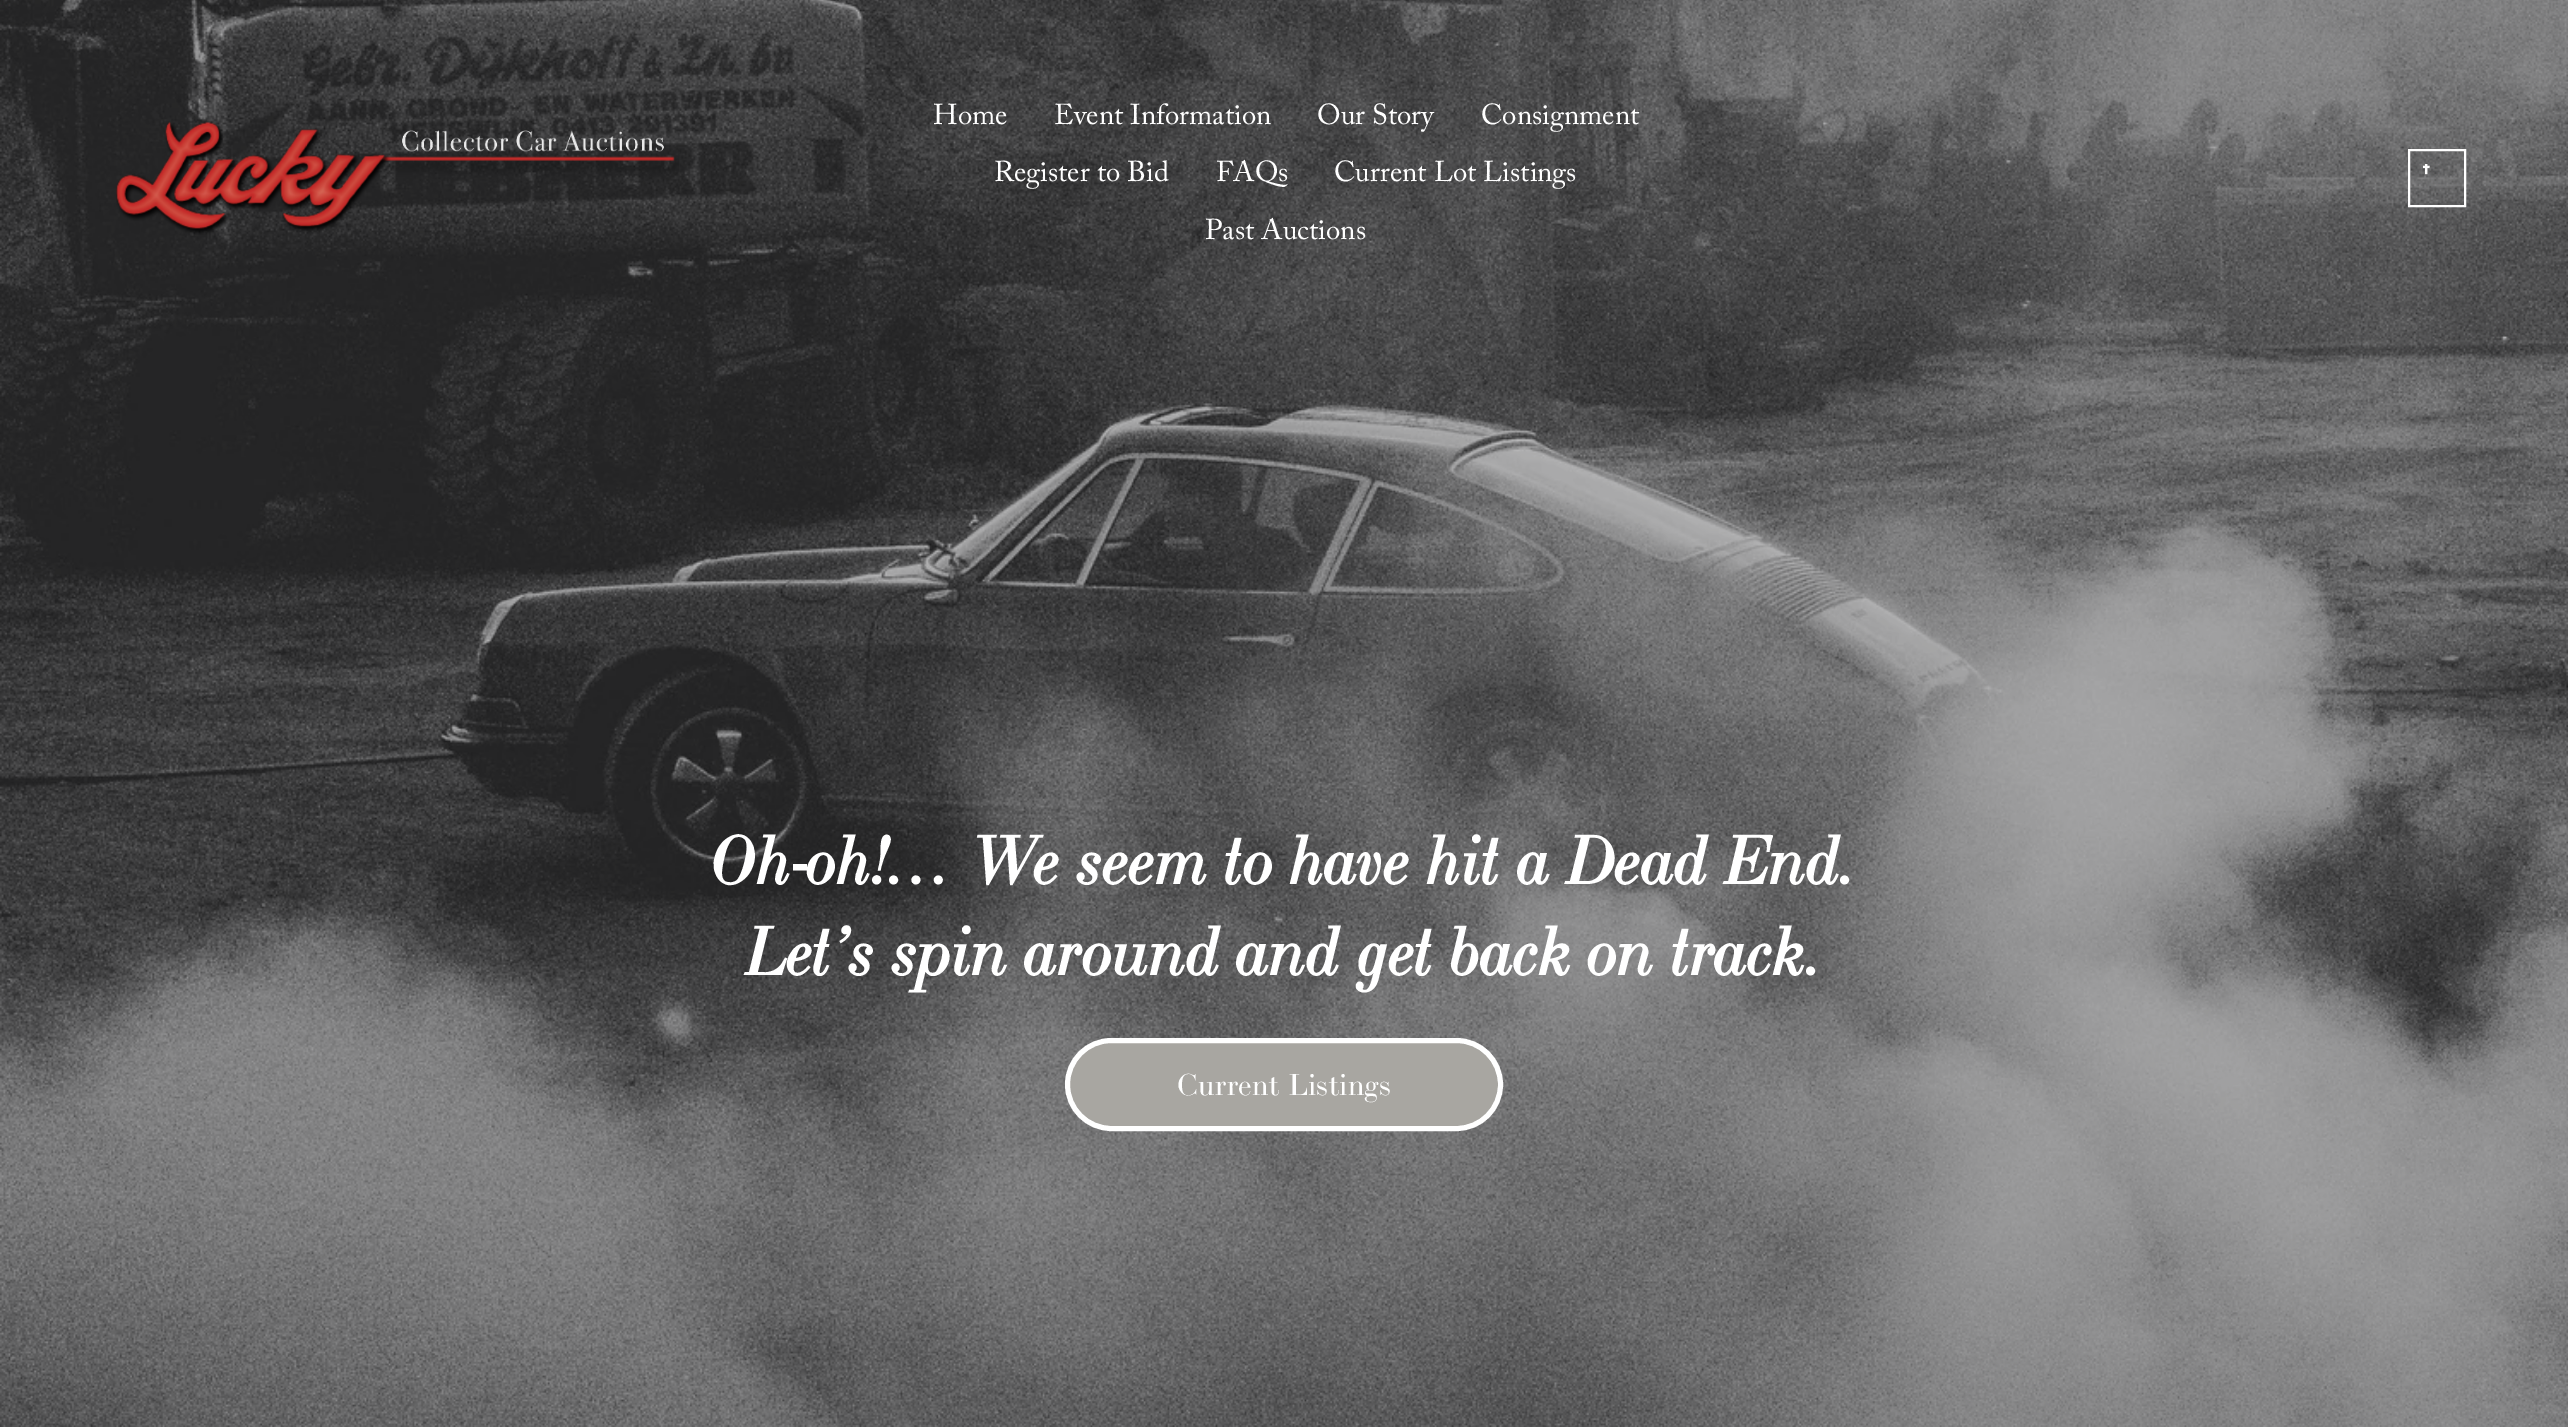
%!PS-Adobe-3.0
%%BoundingBox: 0 0 2568 1427
%%LanguageLevel: 3
%%Pages: 1
%%EndComments
%%BeginProlog
/rrect { 5 dict begin { /r /h /w /y /x } { exch def } forall
  x r add y moveto x w add y 2 copy h add r arct x w add y h add x 1 index r arct
  x y h add x y r arct x y 2 copy exch w add exch r arct closepath end } def
/drawimage { 5 dict begin { /h /w /y /x /name } { exch def } forall
  gsave x y translate w h scale
  w h 8 [w 0 0 h 0 0] name (r) file false 3 colorimage grestore end } def
%%EndProlog
%%BeginSetup
<< /PageSize [2568 1427] >> setpagedevice
%%EndSetup
%%Page: 1 1
0 1427 translate 1 -1 scale
4 setmiterlimit
1 setgray
0 0 2568 1427 rectfill
(images/3.raw) 0 0 2568 1427 drawimage
(images/1.raw) 116 121 563 114 drawimage
2 setlinewidth
2409 150 56 56 rectstroke
(images/2.raw) 2423 164 7 11 drawimage
0.659 0.651 0.631 setrgbcolor
1067.5 1040.5 433 88 44 rrect gsave fill grestore
1 setgray
5 setlinewidth
stroke
/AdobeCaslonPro-Regular [28.75 0 0 -28.75 0 0] selectfont
933 124 moveto (Home) show
1054 124 moveto (Event Information) show
1317 124 moveto (Our Story) show
1481 124 moveto (Consignment) show
994 181 moveto (Register to Bid) show
1216 181 moveto (FAQs) show
1334 181 moveto (Current Lot Listings) show
1205 239 moveto (Past Auctions) show
/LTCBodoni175-BoldItalic [67.25 0 0 -67.25 0 0] selectfont
711 884 moveto (Oh-oh!… We seem to have hit a Dead End.) show
746 975 moveto (Let’s spin around and get back on track.) show
/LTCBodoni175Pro-Regular [30 0 0 -30 0 0] selectfont
1177 1095 moveto (Current Listings) show
showpage
%%EOF
